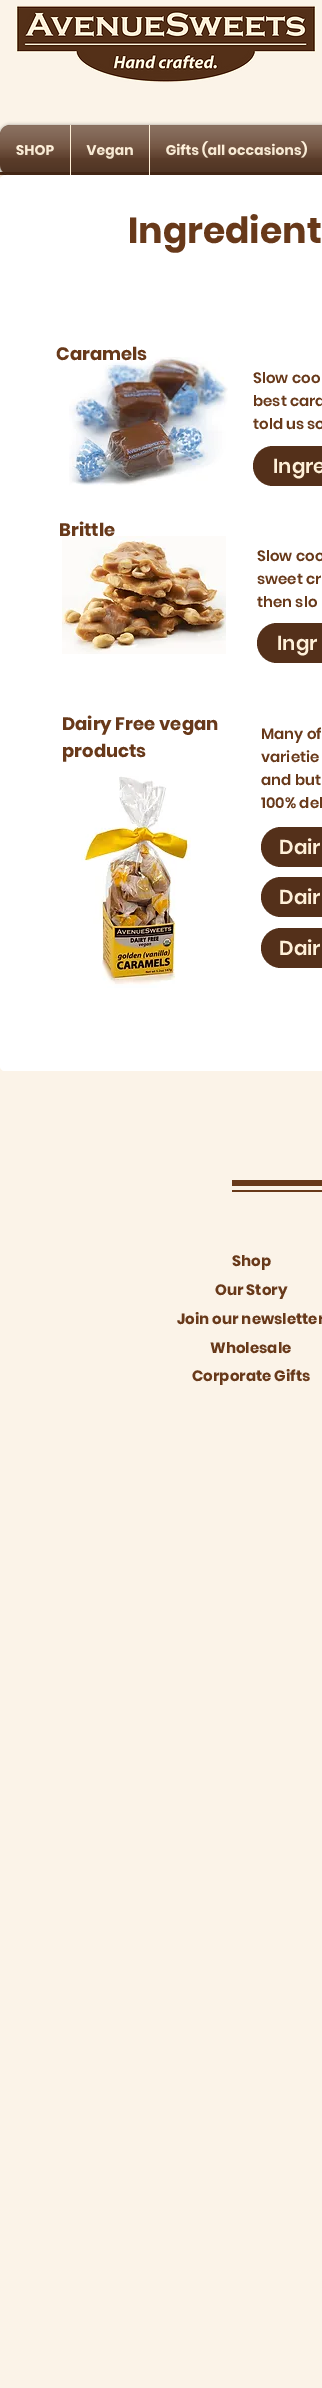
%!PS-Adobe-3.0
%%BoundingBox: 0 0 322 2388
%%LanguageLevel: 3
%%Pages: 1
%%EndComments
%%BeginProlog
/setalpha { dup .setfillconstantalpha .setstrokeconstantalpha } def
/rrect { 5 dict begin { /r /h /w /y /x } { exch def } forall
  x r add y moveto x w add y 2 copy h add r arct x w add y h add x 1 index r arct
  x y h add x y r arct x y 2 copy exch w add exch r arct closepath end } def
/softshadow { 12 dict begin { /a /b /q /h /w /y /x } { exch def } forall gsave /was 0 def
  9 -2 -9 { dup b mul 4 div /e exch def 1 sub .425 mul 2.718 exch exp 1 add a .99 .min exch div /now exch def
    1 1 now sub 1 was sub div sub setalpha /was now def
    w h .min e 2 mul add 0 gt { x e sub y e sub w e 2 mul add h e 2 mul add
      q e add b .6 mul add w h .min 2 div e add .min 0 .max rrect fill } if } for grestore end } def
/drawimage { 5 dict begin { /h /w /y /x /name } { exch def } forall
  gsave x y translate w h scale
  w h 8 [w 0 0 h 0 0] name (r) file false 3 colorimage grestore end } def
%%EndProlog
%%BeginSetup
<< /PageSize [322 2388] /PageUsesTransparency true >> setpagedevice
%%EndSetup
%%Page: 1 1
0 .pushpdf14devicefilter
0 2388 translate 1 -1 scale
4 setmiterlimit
0.984 0.953 0.91 setrgbcolor
0 0 322 2388 rectfill
(images/1.raw) 16 6 300 76 drawimage
0.329 0.188 0.102 setrgbcolor
0 172 322 3 rectfill
gsave
newpath 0 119 moveto 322 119 lineto 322 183 lineto 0 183 lineto closepath 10 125 moveto 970 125 lineto 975.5 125 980 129.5 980 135 curveto 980 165 lineto 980 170.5 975.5 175 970 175 curveto 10 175 lineto 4.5 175 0 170.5 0 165 curveto 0 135 lineto 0 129.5 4.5 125 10 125 curveto closepath eoclip newpath
0 setgray
0 126 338 50 10 2 0.6 softshadow
grestore
0.68 setalpha
0 125 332 50 10 rrect fill
1 setalpha
(images/2.raw) 0 125 322 32 drawimage
(images/3.raw) 0 150 322 25 drawimage
0.68 setalpha
newpath 10 125 moveto 70 125 lineto 70 175 lineto 10 175 lineto 4.5 175 0 170.5 0 165 curveto 0 135 lineto 0 129.5 4.5 125 10 125 curveto closepath fill
71 125 78 50 rectfill
1 setalpha
1 0.941 0.847 setrgbcolor
70 125 1 50 rectfill
0.68 setalpha
0.329 0.188 0.102 setrgbcolor
150 125 172 50 rectfill
1 setalpha
1 0.941 0.847 setrgbcolor
149 125 1 50 rectfill
1 setgray
0 175 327 896 5 rrect fill
0.75 setalpha
newpath 0 1065 moveto 0 1068 2 1071 5 1071 curveto 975 1071 lineto 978 1071 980 1068 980 1065 curveto 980 1068 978 1070 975 1070 curveto 5 1070 lineto 2 1070 0 1068 0 1065 curveto closepath fill
1 setalpha
(images/10.raw) 69 357 159 129 drawimage
0.329 0.188 0.102 setrgbcolor
253 446 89 40 20 rrect fill
(images/11.raw) 62 536 164 118 drawimage
257 623 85 40 20 rrect fill
(images/12.raw) 81 776 110 212 drawimage
261 827 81 40 20 rrect fill
261 877 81 40 20 rrect fill
261 928 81 40 20 rrect fill
0.408 0.224 0.102 setrgbcolor
232 1180 90 6 rectfill
232 1190 90 2 rectfill
/Poppins-Bold [14 0 0 -14 0 0] selectfont
1 0.941 0.847 setrgbcolor
16 155 moveto (SHOP) show
(images/4.raw) 0 125 70 33 drawimage
(images/5.raw) 0 149 70 26 drawimage
86 155 moveto (Vegan) show
(images/6.raw) 71 125 78 33 drawimage
(images/7.raw) 71 149 78 26 drawimage
166 155 moveto (Gifts \(all occasions\)) show
(images/8.raw) 150 125 172 33 drawimage
(images/9.raw) 150 149 172 26 drawimage
/Poppins-Bold [36 0 0 -36 0 0] selectfont
0.408 0.224 0.102 setrgbcolor
128 243 moveto (Ingredient) show
/Poppins-Bold [18 0 0 -18 0 0] selectfont
56 360 moveto (Caramels) show
/Poppins-SemiBold [15 0 0 -15 0 0] selectfont
253 383 moveto (Slow coo) show
253 406 moveto (best cara) show
253 429 moveto (told us so) show
/Poppins-SemiBold [20 0 0 -20 0 0] selectfont
1 0.941 0.847 setrgbcolor
273 473 moveto (Ingre) show
/Poppins-Bold [18 0 0 -18 0 0] selectfont
0.408 0.224 0.102 setrgbcolor
59 536 moveto (Brittle) show
/Poppins-SemiBold [15 0 0 -15 0 0] selectfont
257 561 moveto (Slow coo) show
257 584 moveto (sweet cr) show
257 607 moveto (then slo) show
/Poppins-SemiBold [20 0 0 -20 0 0] selectfont
1 0.941 0.847 setrgbcolor
277 650 moveto (Ingr) show
/Poppins-Bold [18 0 0 -18 0 0] selectfont
0.408 0.224 0.102 setrgbcolor
62 730 moveto (Dairy Free vegan) show
62 757 moveto (products) show
/Poppins-SemiBold [15 0 0 -15 0 0] selectfont
261 739 moveto (Many of) show
261 762 moveto (varietie) show
261 785 moveto (and but) show
261 808 moveto (100% del) show
/Poppins-SemiBold [20 0 0 -20 0 0] selectfont
1 0.941 0.847 setrgbcolor
279 854 moveto (Dair) show
279 904 moveto (Dair) show
279 955 moveto (Dair) show
/Poppins-Bold [15 0 0 -15 0 0] selectfont
0.408 0.224 0.102 setrgbcolor
232 1266 moveto (Shop) show
215 1295 moveto (Our Story) show
177 1324 moveto (Join our newsletter) show
210 1353 moveto (Wholesale) show
192 1381 moveto (Corporate Gifts) show
.poppdf14devicefilter showpage
%%EOF
